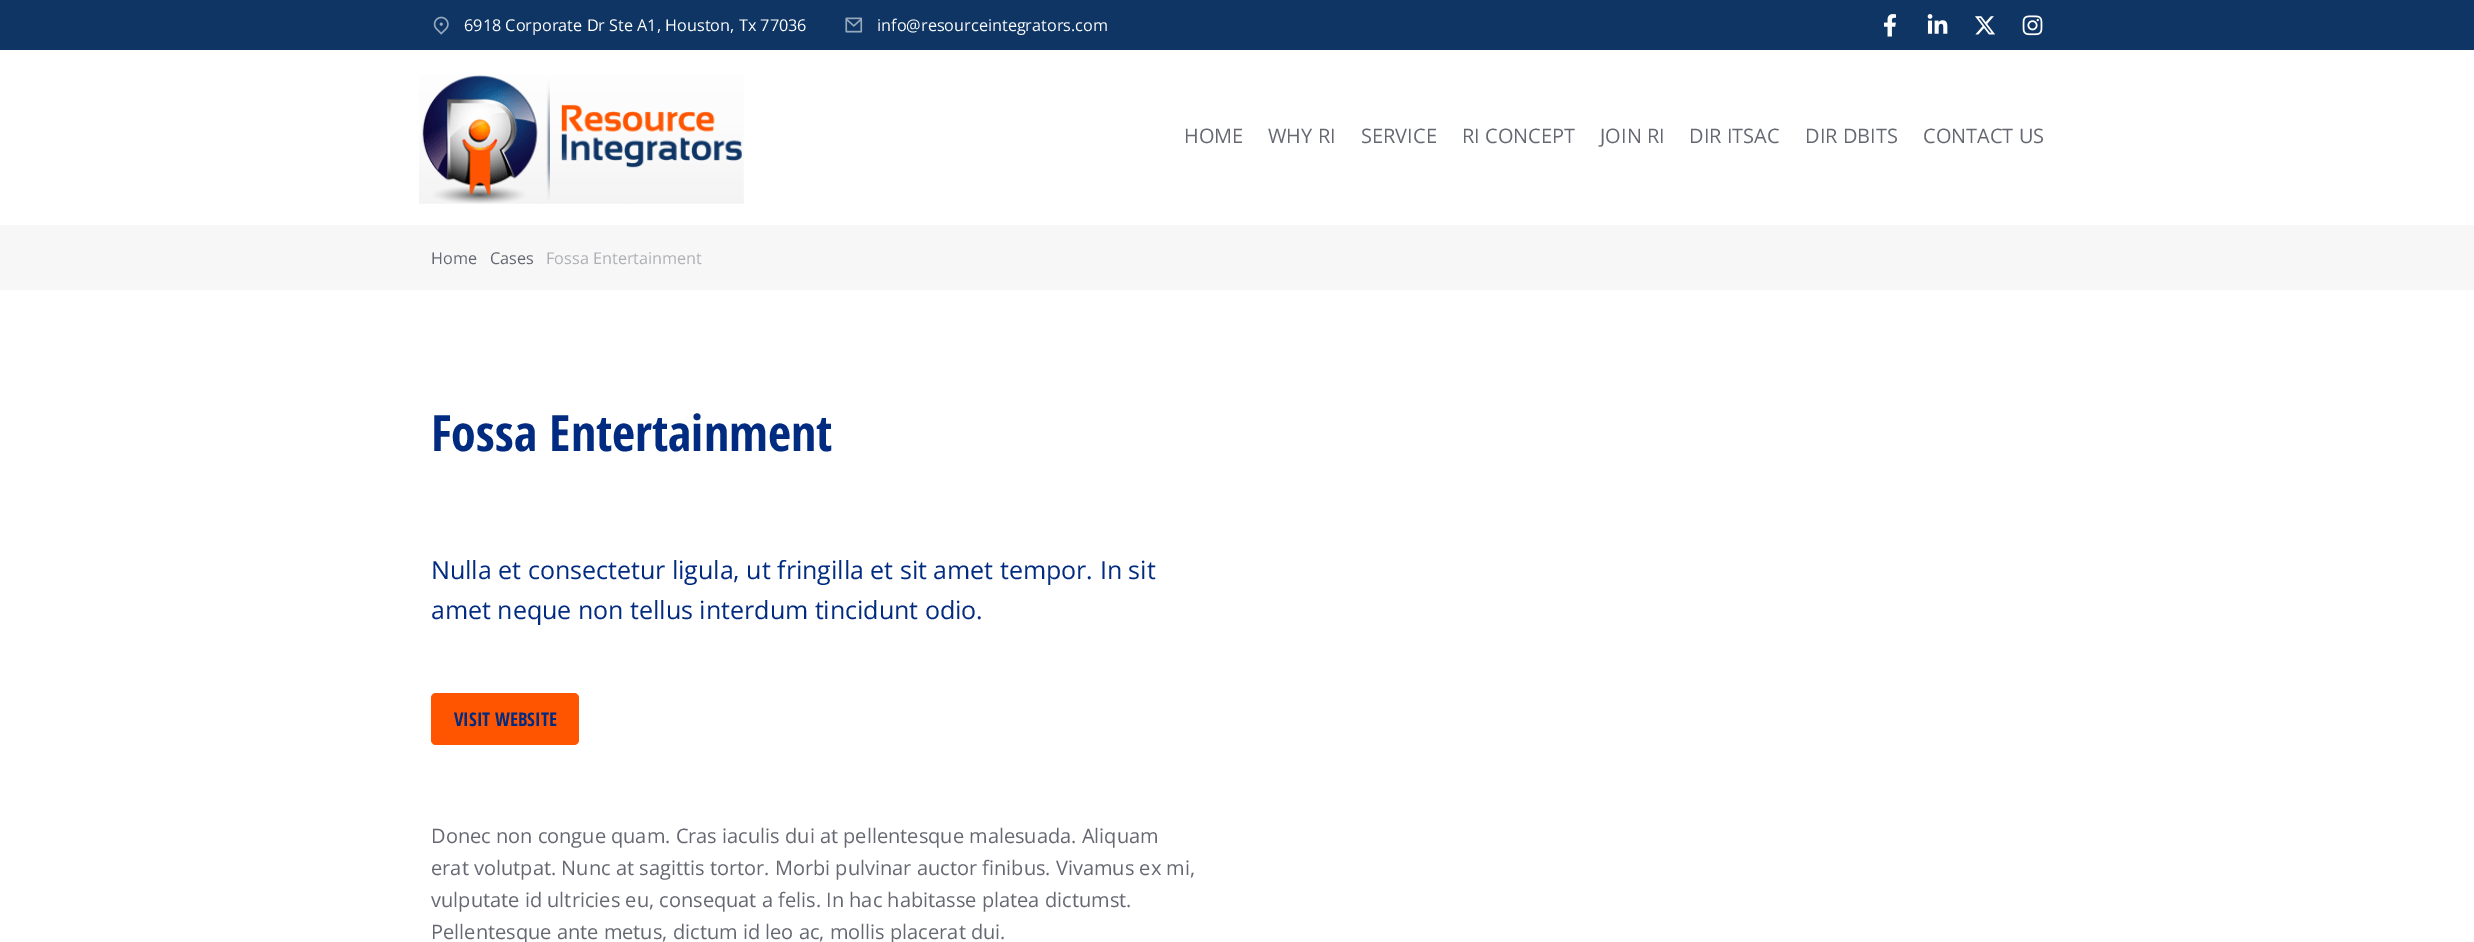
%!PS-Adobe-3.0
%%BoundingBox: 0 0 2474 942
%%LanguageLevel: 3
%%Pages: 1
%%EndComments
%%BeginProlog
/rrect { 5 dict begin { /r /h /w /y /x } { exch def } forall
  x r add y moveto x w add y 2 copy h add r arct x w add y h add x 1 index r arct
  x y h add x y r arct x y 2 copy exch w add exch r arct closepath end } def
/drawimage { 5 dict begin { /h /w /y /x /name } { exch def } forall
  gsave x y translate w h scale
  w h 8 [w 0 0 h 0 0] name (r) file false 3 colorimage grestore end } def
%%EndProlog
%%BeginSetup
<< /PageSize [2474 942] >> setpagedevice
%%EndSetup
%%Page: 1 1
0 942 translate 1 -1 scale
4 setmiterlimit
1 setgray
0 0 2474 942 rectfill
0.055 0.208 0.392 setrgbcolor
0 0 2474 50 rectfill
(images/1.raw) 433 16 16 19 drawimage
(images/2.raw) 845 17 18 16 drawimage
(images/3.raw) 1884 14 12 23 drawimage
(images/4.raw) 1927 14 21 20 drawimage
(images/5.raw) 1975 16 20 19 drawimage
(images/6.raw) 2022 15 21 21 drawimage
(images/7.raw) 419 75 325 129 drawimage
0.969 0.969 0.973 setrgbcolor
0 225 2474 65 rectfill
1 0.333 0 setrgbcolor
431 693 148 52 5 rrect fill
/OpenSans-Regular [16.25 0 0 -16.25 0 0] selectfont
1 setgray
464 31 moveto (6918 Corporate Dr Ste A1, Houston, Tx 77036) show
877 31 moveto (info@resourceintegrators.com) show
/OpenSans-Regular [20 0 0 -20 0 0] selectfont
0.396 0.408 0.443 setrgbcolor
1184 143 moveto (HOME) show
1268 143 moveto (WHY RI) show
1361 143 moveto (SERVICE) show
1462 143 moveto (RI CONCEPT) show
1600 143 moveto (JOIN RI) show
1689 143 moveto (DIR ITSAC) show
1805 143 moveto (DIR DBITS) show
1923 143 moveto (CONTACT US) show
/OpenSans-Regular [16.25 0 0 -16.25 0 0] selectfont
431 264 moveto (Home) show
490 264 moveto (Cases) show
0.686 0.69 0.71 setrgbcolor
546 264 moveto (Fossa Entertainment) show
/OpenSansCondensed-Bold [50 0 0 -50 0 0] selectfont
0 0.169 0.502 setrgbcolor
431 451 moveto (Fossa Entertainment) show
/OpenSans-Regular [25 0 0 -25 0 0] selectfont
431 579 moveto (Nulla et consectetur ligula, ut fringilla et sit amet tempor. In sit) show
431 619 moveto (amet neque non tellus interdum tincidunt odio.) show
/OpenSansCondensed-Bold [18.75 0 0 -18.75 0 0] selectfont
454 726 moveto (VISIT WEBSITE) show
/OpenSans-Regular [20 0 0 -20 0 0] selectfont
0.396 0.408 0.443 setrgbcolor
431 843 moveto (Donec non congue quam. Cras iaculis dui at pellentesque malesuada. Aliquam) show
431 875 moveto (erat volutpat. Nunc at sagittis tortor. Morbi pulvinar auctor finibus. Vivamus ex mi,) show
431 907 moveto (vulputate id ultricies eu, consequat a felis. In hac habitasse platea dictumst.) show
431 939 moveto (Pellentesque ante metus, dictum id leo ac, mollis placerat dui.) show
showpage
%%EOF
